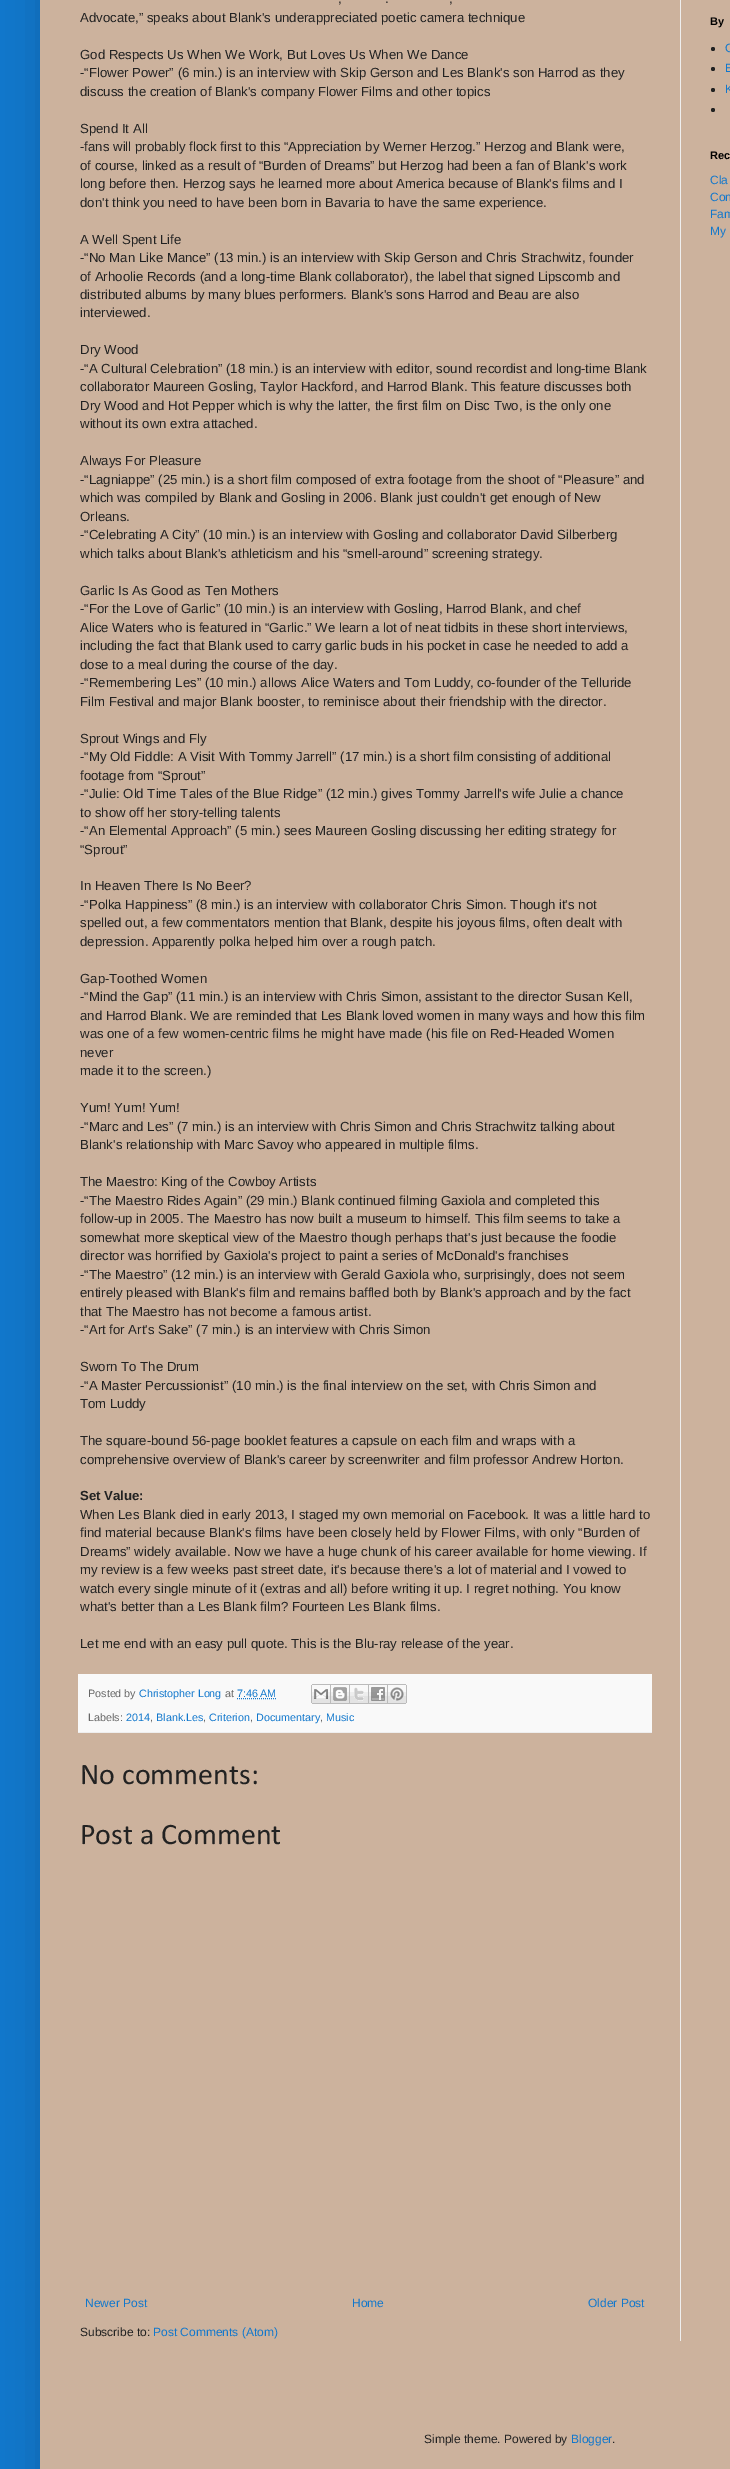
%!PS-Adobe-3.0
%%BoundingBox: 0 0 730 2469
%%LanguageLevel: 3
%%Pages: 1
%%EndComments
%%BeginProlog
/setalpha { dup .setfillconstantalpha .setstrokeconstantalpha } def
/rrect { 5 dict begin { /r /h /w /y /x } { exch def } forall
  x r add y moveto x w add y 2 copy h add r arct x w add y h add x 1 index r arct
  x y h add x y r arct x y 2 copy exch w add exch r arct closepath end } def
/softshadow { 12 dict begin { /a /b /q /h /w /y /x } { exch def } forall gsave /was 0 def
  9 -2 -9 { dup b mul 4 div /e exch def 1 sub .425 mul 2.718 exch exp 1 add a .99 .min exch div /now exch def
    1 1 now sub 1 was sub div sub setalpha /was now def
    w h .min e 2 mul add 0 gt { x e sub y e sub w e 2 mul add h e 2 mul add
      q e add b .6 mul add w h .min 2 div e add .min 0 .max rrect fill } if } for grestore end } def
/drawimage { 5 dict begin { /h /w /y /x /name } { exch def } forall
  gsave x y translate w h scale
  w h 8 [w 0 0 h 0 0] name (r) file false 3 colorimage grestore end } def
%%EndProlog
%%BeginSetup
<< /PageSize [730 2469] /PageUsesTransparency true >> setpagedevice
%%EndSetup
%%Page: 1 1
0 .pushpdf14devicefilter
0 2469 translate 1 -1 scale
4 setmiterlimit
0.067 0.467 0.8 setrgbcolor
0 0 730 2469 rectfill
0 setgray
40 -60 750 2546 0 20 0.15 softshadow
0.8 0.698 0.616 setrgbcolor
40 0 690 2469 rectfill
0.933 setgray
680 0 1 2341 rectfill
0.976 setgray
78 1674 574 58 rectfill
0.933 setgray
78 1732 574 1 rectfill
0.067 0.467 0.8 setrgbcolor
[1 1] 0 setdash
newpath 237 1698.5 moveto 276 1698.5 lineto stroke
(images/1.raw) 311 1684 20 20 drawimage
(images/2.raw) 331 1684 19 20 drawimage
(images/3.raw) 350 1684 19 20 drawimage
(images/4.raw) 369 1684 19 20 drawimage
(images/5.raw) 388 1684 19 20 drawimage
0.133 setgray
newpath 713 49 2 0 360 arc closepath fill
newpath 713 69 2 0 360 arc closepath fill
newpath 713 90 2 0 360 arc closepath fill
newpath 713 110 2 0 360 arc closepath fill
/LiberationSans-Regular [13.2 0 0 -13.2 0 0] selectfont
338 3 moveto (,) show
385 3 moveto (.) show
449 3 moveto (,) show
80 22 moveto (Advocate,” speaks about Blank's underappreciated poetic camera technique) show
80 59 moveto (God Respects Us When We Work, But Loves Us When We Dance) show
80 77 moveto (-“Flower Power” \(6 min.\) is an interview with Skip Gerson and Les Blank's son Harrod as they) show
80 96 moveto (discuss the creation of Blank's company Flower Films and other topics) show
80 133 moveto (Spend It All) show
80 151 moveto (-fans will probably flock first to this “Appreciation by Werner Herzog.” Herzog and Blank were,) show
80 170 moveto (of course, linked as a result of “Burden of Dreams” but Herzog had been a fan of Blank's work) show
80 188 moveto (long before then. Herzog says he learned more about America because of Blank's films and I) show
80 207 moveto (don't think you need to have been born in Bavaria to have the same experience.) show
80 244 moveto (A Well Spent Life) show
80 262 moveto (-“No Man Like Mance” \(13 min.\) is an interview with Skip Gerson and Chris Strachwitz, founder) show
80 281 moveto (of Arhoolie Records \(and a long-time Blank collaborator\), the label that signed Lipscomb and) show
80 299 moveto (distributed albums by many blues performers. Blank's sons Harrod and Beau are also) show
80 317 moveto (interviewed.) show
80 354 moveto (Dry Wood) show
80 373 moveto (-“A Cultural Celebration” \(18 min.\) is an interview with editor, sound recordist and long-time Blank) show
80 391 moveto (collaborator Maureen Gosling, Taylor Hackford, and Harrod Blank. This feature discusses both) show
80 410 moveto (Dry Wood and Hot Pepper which is why the latter, the first film on Disc Two, is the only one) show
80 428 moveto (without its own extra attached.) show
80 465 moveto (Always For Pleasure) show
80 484 moveto (-“Lagniappe” \(25 min.\) is a short film composed of extra footage from the shoot of “Pleasure” and) show
80 502 moveto (which was compiled by Blank and Gosling in 2006. Blank just couldn't get enough of New) show
80 521 moveto (Orleans.) show
80 539 moveto (-“Celebrating A City” \(10 min.\) is an interview with Gosling and collaborator David Silberberg) show
80 558 moveto (which talks about Blank's athleticism and his “smell-around” screening strategy.) show
80 595 moveto (Garlic Is As Good as Ten Mothers) show
80 613 moveto (-“For the Love of Garlic” \(10 min.\) is an interview with Gosling, Harrod Blank, and chef) show
80 632 moveto (Alice Waters who is featured in “Garlic.” We learn a lot of neat tidbits in these short interviews,) show
80 650 moveto (including the fact that Blank used to carry garlic buds in his pocket in case he needed to add a) show
80 669 moveto (dose to a meal during the course of the day.) show
80 687 moveto (-“Remembering Les” \(10 min.\) allows Alice Waters and Tom Luddy, co-founder of the Telluride) show
80 706 moveto (Film Festival and major Blank booster, to reminisce about their friendship with the director.) show
80 743 moveto (Sprout Wings and Fly) show
80 761 moveto (-“My Old Fiddle: A Visit With Tommy Jarrell” \(17 min.\) is a short film consisting of additional) show
80 780 moveto (footage from “Sprout”) show
80 798 moveto (-“Julie: Old Time Tales of the Blue Ridge” \(12 min.\) gives Tommy Jarrell's wife Julie a chance) show
80 817 moveto (to show off her story-telling talents) show
80 835 moveto (-“An Elemental Approach” \(5 min.\) sees Maureen Gosling discussing her editing strategy for) show
80 854 moveto (“Sprout”) show
80 890 moveto (In Heaven There Is No Beer?) show
80 909 moveto (-“Polka Happiness” \(8 min.\) is an interview with collaborator Chris Simon. Though it's not) show
80 927 moveto (spelled out, a few commentators mention that Blank, despite his joyous films, often dealt with) show
80 946 moveto (depression. Apparently polka helped him over a rough patch.) show
80 983 moveto (Gap-Toothed Women) show
80 1001 moveto (-“Mind the Gap” \(11 min.\) is an interview with Chris Simon, assistant to the director Susan Kell,) show
80 1020 moveto (and Harrod Blank. We are reminded that Les Blank loved women in many ways and how this film) show
80 1038 moveto (was one of a few women-centric films he might have made \(his file on Red-Headed Women) show
80 1057 moveto (never) show
80 1075 moveto (made it to the screen.\)) show
80 1112 moveto (Yum! Yum! Yum!) show
80 1131 moveto (-“Marc and Les” \(7 min.\) is an interview with Chris Simon and Chris Strachwitz talking about) show
80 1149 moveto (Blank's relationship with Marc Savoy who appeared in multiple films.) show
80 1186 moveto (The Maestro: King of the Cowboy Artists) show
80 1205 moveto (-“The Maestro Rides Again” \(29 min.\) Blank continued filming Gaxiola and completed this) show
80 1223 moveto (follow-up in 2005. The Maestro has now built a museum to himself. This film seems to take a) show
80 1242 moveto (somewhat more skeptical view of the Maestro though perhaps that's just because the foodie) show
80 1260 moveto (director was horrified by Gaxiola's project to paint a series of McDonald's franchises) show
80 1279 moveto (-“The Maestro” \(12 min.\) is an interview with Gerald Gaxiola who, surprisingly, does not seem) show
80 1297 moveto (entirely pleased with Blank's film and remains baffled both by Blank's approach and by the fact) show
80 1316 moveto (that The Maestro has not become a famous artist.) show
80 1334 moveto (-“Art for Art's Sake” \(7 min.\) is an interview with Chris Simon) show
80 1371 moveto (Sworn To The Drum) show
80 1390 moveto (-“A Master Percussionist” \(10 min.\) is the final interview on the set, with Chris Simon and) show
80 1408 moveto (Tom Luddy) show
80 1445 moveto (The square-bound 56-page booklet features a capsule on each film and wraps with a) show
80 1464 moveto (comprehensive overview of Blank's career by screenwriter and film professor Andrew Horton.) show
/LiberationSans-Bold [13.2 0 0 -13.2 0 0] selectfont
80 1500 moveto (Set Value:) show
/LiberationSans-Regular [13.2 0 0 -13.2 0 0] selectfont
80 1519 moveto (When Les Blank died in early 2013, I staged my own memorial on Facebook. It was a little hard to) show
80 1537 moveto (find material because Blank's films have been closely held by Flower Films, with only “Burden of) show
80 1556 moveto (Dreams” widely available. Now we have a huge chunk of his career available for home viewing. If) show
80 1574 moveto (my review is a few weeks past street date, it's because there's a lot of material and I vowed to) show
80 1593 moveto (watch every single minute of it \(extras and all\) before writing it up. I regret nothing. You know) show
80 1611 moveto (what's better than a Les Blank film? Fourteen Les Blank films.) show
80 1648 moveto (Let me end with an easy pull quote. This is the Blu-ray release of the year.) show
/LiberationSans-Regular [10.75 0 0 -10.75 0 0] selectfont
0.4 setgray
88 1697 moveto (Posted by) show
0.067 0.467 0.8 setrgbcolor
139 1697 moveto (Christopher Long) show
0.4 setgray
225 1697 moveto (at) show
0.067 0.467 0.8 setrgbcolor
237 1697 moveto (7:46 AM) show
0.4 setgray
88 1721 moveto (Labels:) show
0.067 0.467 0.8 setrgbcolor
126 1721 moveto (2014) show
0.4 setgray
150 1721 moveto (,) show
0.067 0.467 0.8 setrgbcolor
156 1721 moveto (Blank.Les) show
0.4 setgray
203 1721 moveto (,) show
0.067 0.467 0.8 setrgbcolor
209 1721 moveto (Criterion) show
0.4 setgray
250 1721 moveto (,) show
0.067 0.467 0.8 setrgbcolor
256 1721 moveto (Documentary) show
0.4 setgray
320 1721 moveto (,) show
0.067 0.467 0.8 setrgbcolor
326 1721 moveto (Music) show
/Calibri-Regular [30 0 0 -30 0 0] selectfont
0.133 setgray
80 1784 moveto (No comments:) show
80 1844 moveto (Post a Comment) show
/LiberationSans-Regular [12 0 0 -12 0 0] selectfont
0.067 0.467 0.8 setrgbcolor
85 2307 moveto (Newer Post) show
352 2307 moveto (Home) show
588 2307 moveto (Older Post) show
0.133 setgray
80 2336 moveto (Subscribe to:) show
0.067 0.467 0.8 setrgbcolor
153 2336 moveto (Post Comments \(Atom\)) show
/LiberationSans-Bold [11 0 0 -11 0 0] selectfont
0 setgray
710 25 moveto (By) show
/LiberationSans-Regular [12 0 0 -12 0 0] selectfont
0.067 0.467 0.8 setrgbcolor
725 52 moveto (C) show
725 72 moveto (E) show
725 93 moveto (K) show
/LiberationSans-Bold [11 0 0 -11 0 0] selectfont
0 setgray
710 159 moveto (Rec) show
/LiberationSans-Regular [12 0 0 -12 0 0] selectfont
0.067 0.467 0.8 setrgbcolor
710 184 moveto (Cla) show
710 201 moveto (Con) show
710 218 moveto (Fam) show
710 235 moveto (My) show
0.133 setgray
424 2443 moveto (Simple theme. Powered by) show
0.067 0.467 0.8 setrgbcolor
571 2443 moveto (Blogger) show
0.133 setgray
612 2443 moveto (.) show
.poppdf14devicefilter showpage
%%EOF
